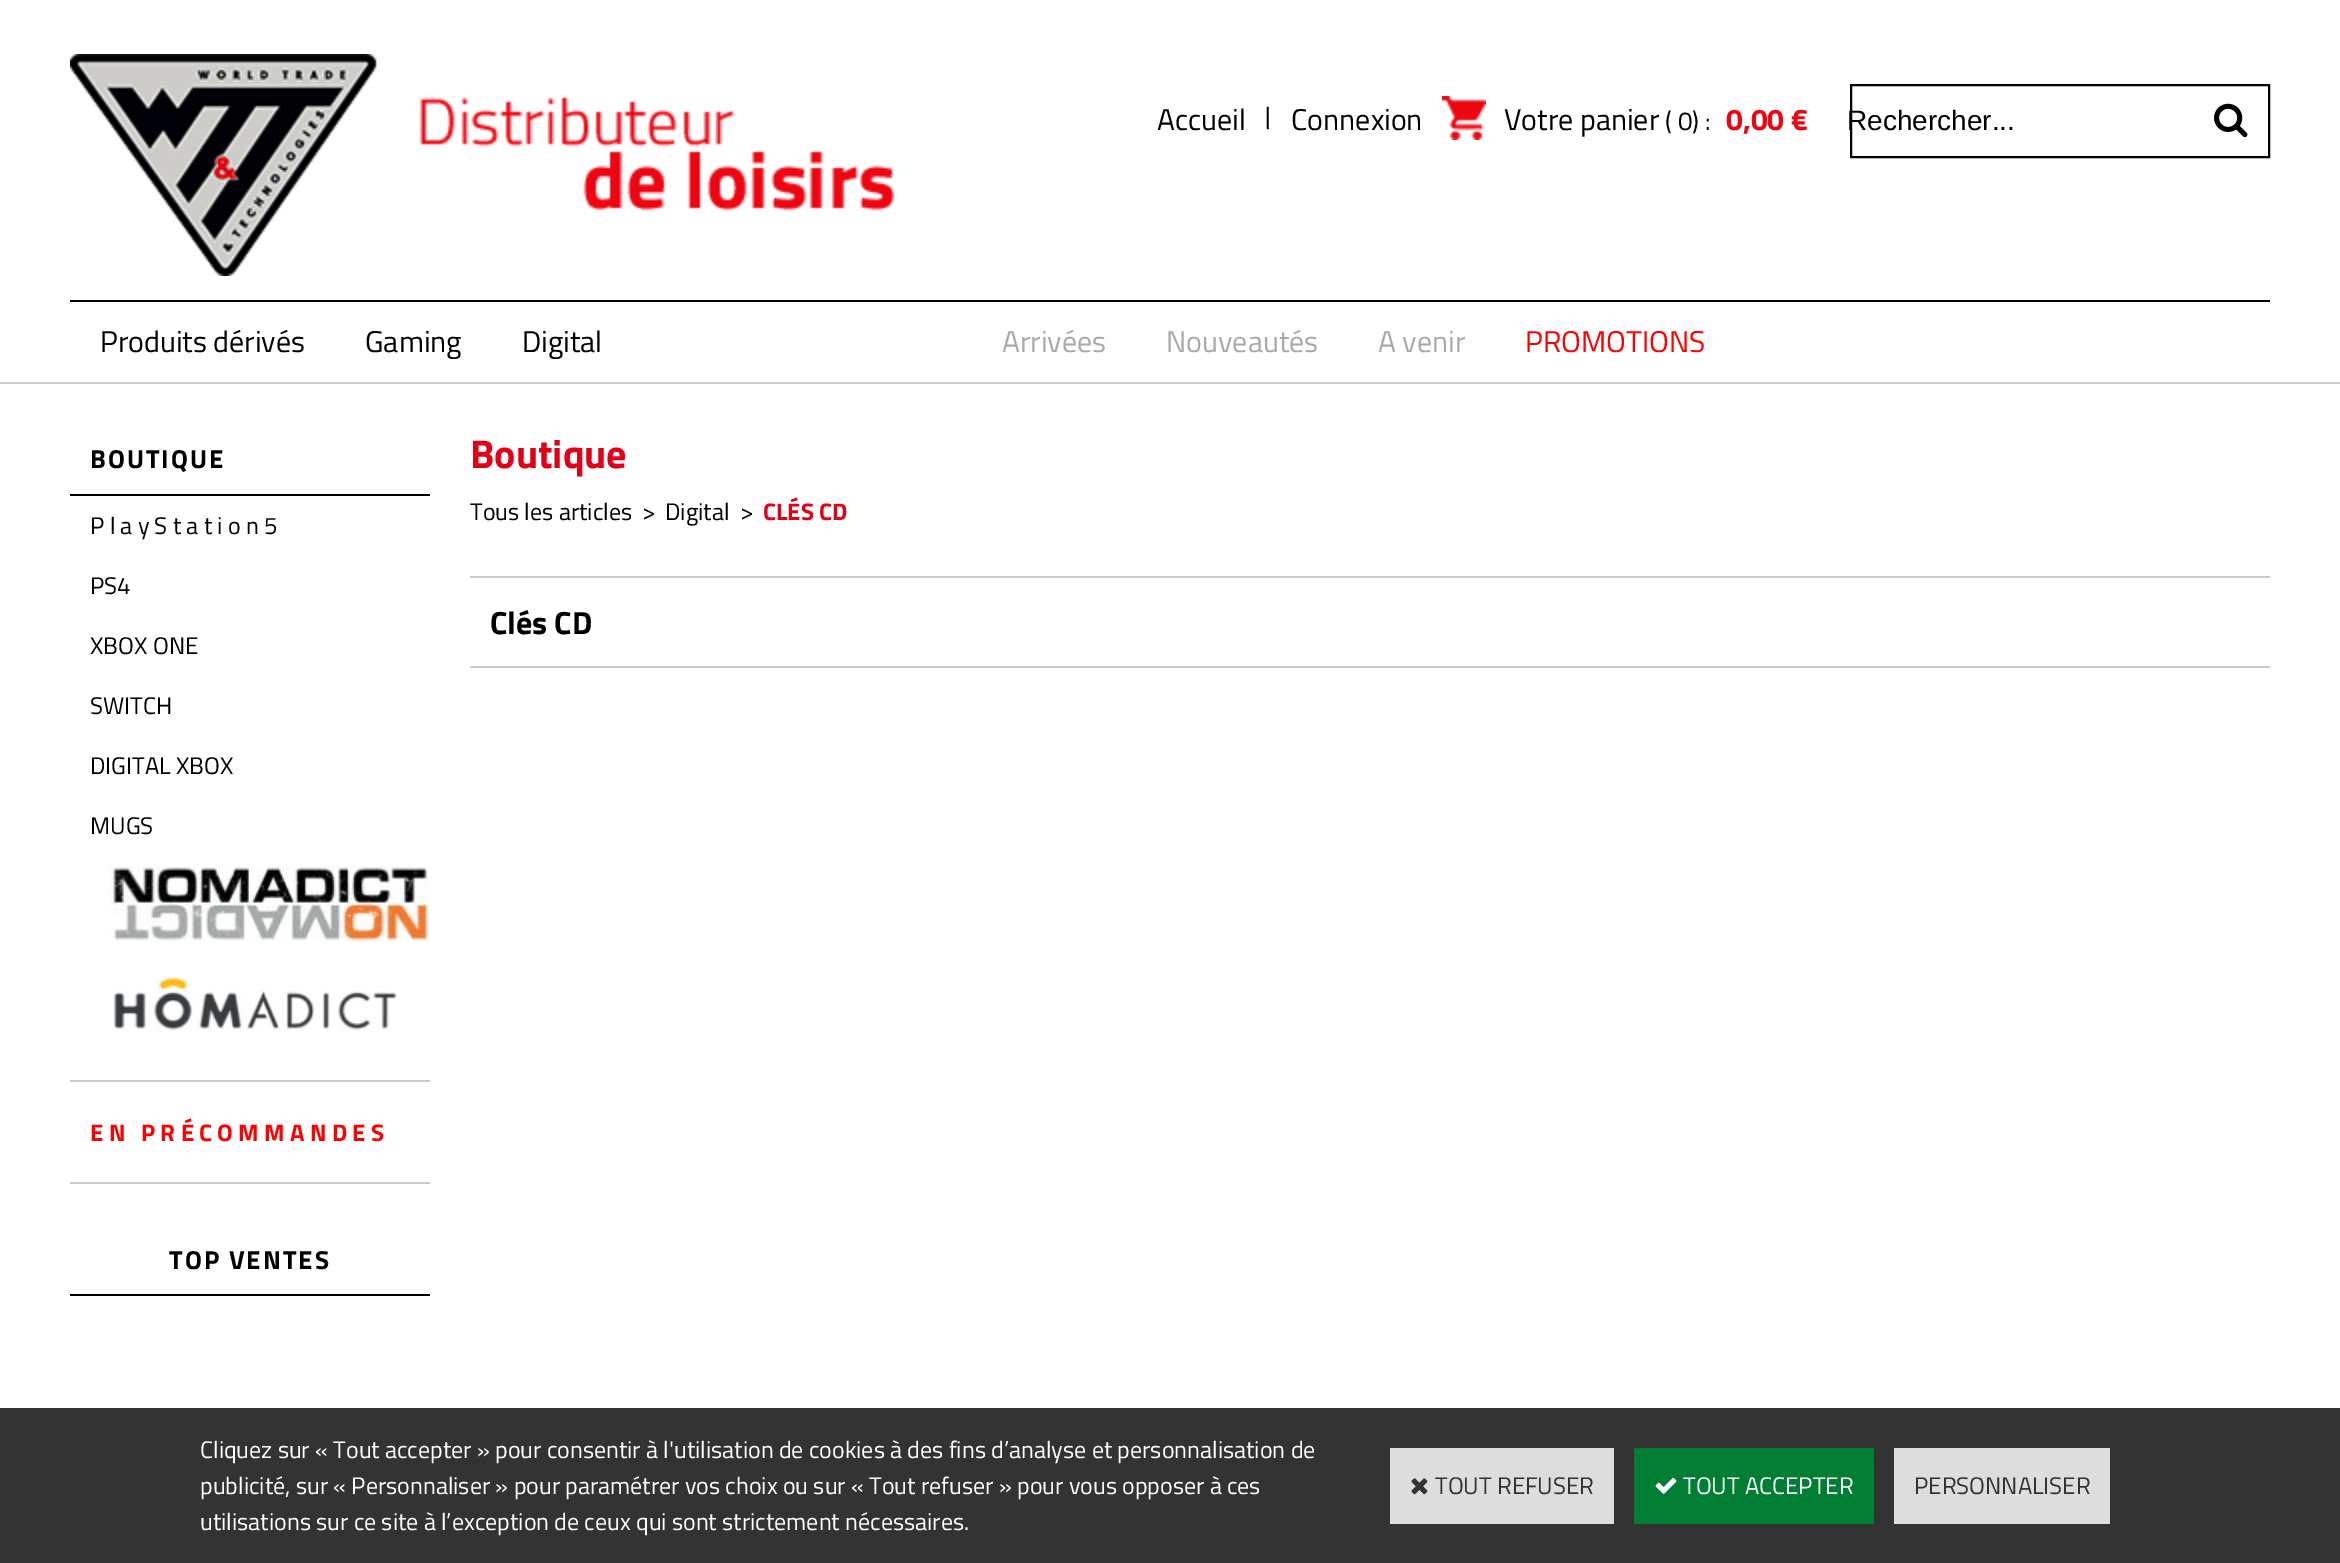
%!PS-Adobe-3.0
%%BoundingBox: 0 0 2340 1563
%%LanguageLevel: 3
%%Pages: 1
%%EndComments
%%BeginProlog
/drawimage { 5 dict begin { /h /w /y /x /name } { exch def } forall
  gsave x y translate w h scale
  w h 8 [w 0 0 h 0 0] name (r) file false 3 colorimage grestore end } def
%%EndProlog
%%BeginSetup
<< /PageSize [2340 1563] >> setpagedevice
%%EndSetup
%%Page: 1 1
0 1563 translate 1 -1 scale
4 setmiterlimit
1 setgray
0 0 2340 1563 rectfill
0.808 0.804 0.792 setrgbcolor
0 382 2340 2 rectfill
(images/1.raw) 70 54 824 222 drawimage
(images/2.raw) 1442 96 44 44 drawimage
0 setgray
2 setlinewidth
1851 85 418 72 rectstroke
(images/3.raw) 2214 103 34 35 drawimage
70 300 2200 2 rectfill
70 494 360 2 rectfill
(images/4.raw) 110 866 320 76 drawimage
(images/5.raw) 113 977 284 54 drawimage
0.8 setgray
70 1080 360 2 rectfill
70 1182 360 2 rectfill
0 setgray
70 1294 360 2 rectfill
0.8 setgray
470 576 1800 2 rectfill
470 666 1800 2 rectfill
0.2 setgray
0 1408 2340 155 rectfill
0.867 setgray
1390 1448 224 76 rectfill
(images/6.raw) 1411 1478 17 17 drawimage
0 0.494 0.2 setrgbcolor
1634 1448 240 76 rectfill
(images/7.raw) 1655 1477 22 17 drawimage
0.867 setgray
1894 1448 216 76 rectfill
/TitilliumWeb-Regular [30 0 0 -30 0 0] selectfont
0 setgray
1157 130 moveto (Accueil) show
/TitilliumWeb-Regular [24 0 0 -24 0 0] selectfont
1265 124 moveto (|) show
/TitilliumWeb-Regular [30 0 0 -30 0 0] selectfont
1291 130 moveto (Connexion) show
1504 130 moveto (Votre panier) show
/TitilliumWeb-Regular [26 0 0 -26 0 0] selectfont
1665 130 moveto (\( 0\) :) show
/TitilliumWeb-Bold [30 0 0 -30 0 0] selectfont
0.929 0.02 0.067 setrgbcolor
1726 130 moveto (0,00 €) show
/LiberationSans-Regular [28 0 0 -28 0 0] selectfont
0 setgray
1847 130 moveto (Rechercher...) show
/TitilliumWeb-Regular [30 0 0 -30 0 0] selectfont
100 352 moveto (Produits dérivés) show
365 352 moveto (Gaming) show
522 352 moveto (Digital) show
0.663 setgray
1002 352 moveto (Arrivées) show
1166 352 moveto (Nouveautés) show
1378 352 moveto (A venir) show
1 0 0 setrgbcolor
1525 352 moveto (PROMOTIONS) show
/TitilliumWeb-Bold [26 0 0 -26 0 0] selectfont
0 setgray
90 468 moveto 2 0 (BOUTIQUE) ashow
/TitilliumWeb-Regular [24 0 0 -24 0 0] selectfont
90 534 moveto (P l a y S t a t i o n 5) show
90 594 moveto (PS4) show
90 654 moveto (XBOX ONE) show
90 714 moveto (SWITCH) show
90 774 moveto (DIGITAL XBOX) show
90 834 moveto (MUGS) show
/TitilliumWeb-Bold [24 0 0 -24 0 0] selectfont
1 0 0 setrgbcolor
90 1141 moveto (E N) show
141 1141 moveto (P R É C O M M A N D E S) show
/TitilliumWeb-Bold [26 0 0 -26 0 0] selectfont
0 setgray
169 1269 moveto 2 0 (TOP VENTES) ashow
/TitilliumWeb-Bold [40 0 0 -40 0 0] selectfont
0.882 0 0.082 setrgbcolor
470 468 moveto (Boutique) show
/TitilliumWeb-Regular [24 0 0 -24 0 0] selectfont
0 setgray
470 520 moveto (Tous les articles) show
642 520 moveto (>) show
665 520 moveto (Digital) show
740 520 moveto (>) show
/TitilliumWeb-Bold [24 0 0 -24 0 0] selectfont
0.882 0 0.082 setrgbcolor
763 520 moveto (CLÉS CD) show
/TitilliumWeb-Bold [32 0 0 -32 0 0] selectfont
0 setgray
490 634 moveto (Clés CD) show
/TitilliumWeb-Regular [24 0 0 -24 0 0] selectfont
1 setgray
200 1458 moveto (Cliquez sur « Tout accepter » pour consentir à l'utilisation de cookies à des fins d’analyse et personnalisation de) show
200 1494 moveto (publicité, sur « Personnaliser » pour paramétrer vos choix ou sur « Tout refuser » pour vous opposer à ces) show
200 1530 moveto (utilisations sur ce site à l’exception de ceux qui sont strictement nécessaires.) show
0.2 setgray
1435 1494 moveto (TOUT REFUSER) show
1 setgray
1683 1494 moveto (TOUT ACCEPTER) show
0.2 setgray
1914 1494 moveto (PERSONNALISER) show
showpage
%%EOF
